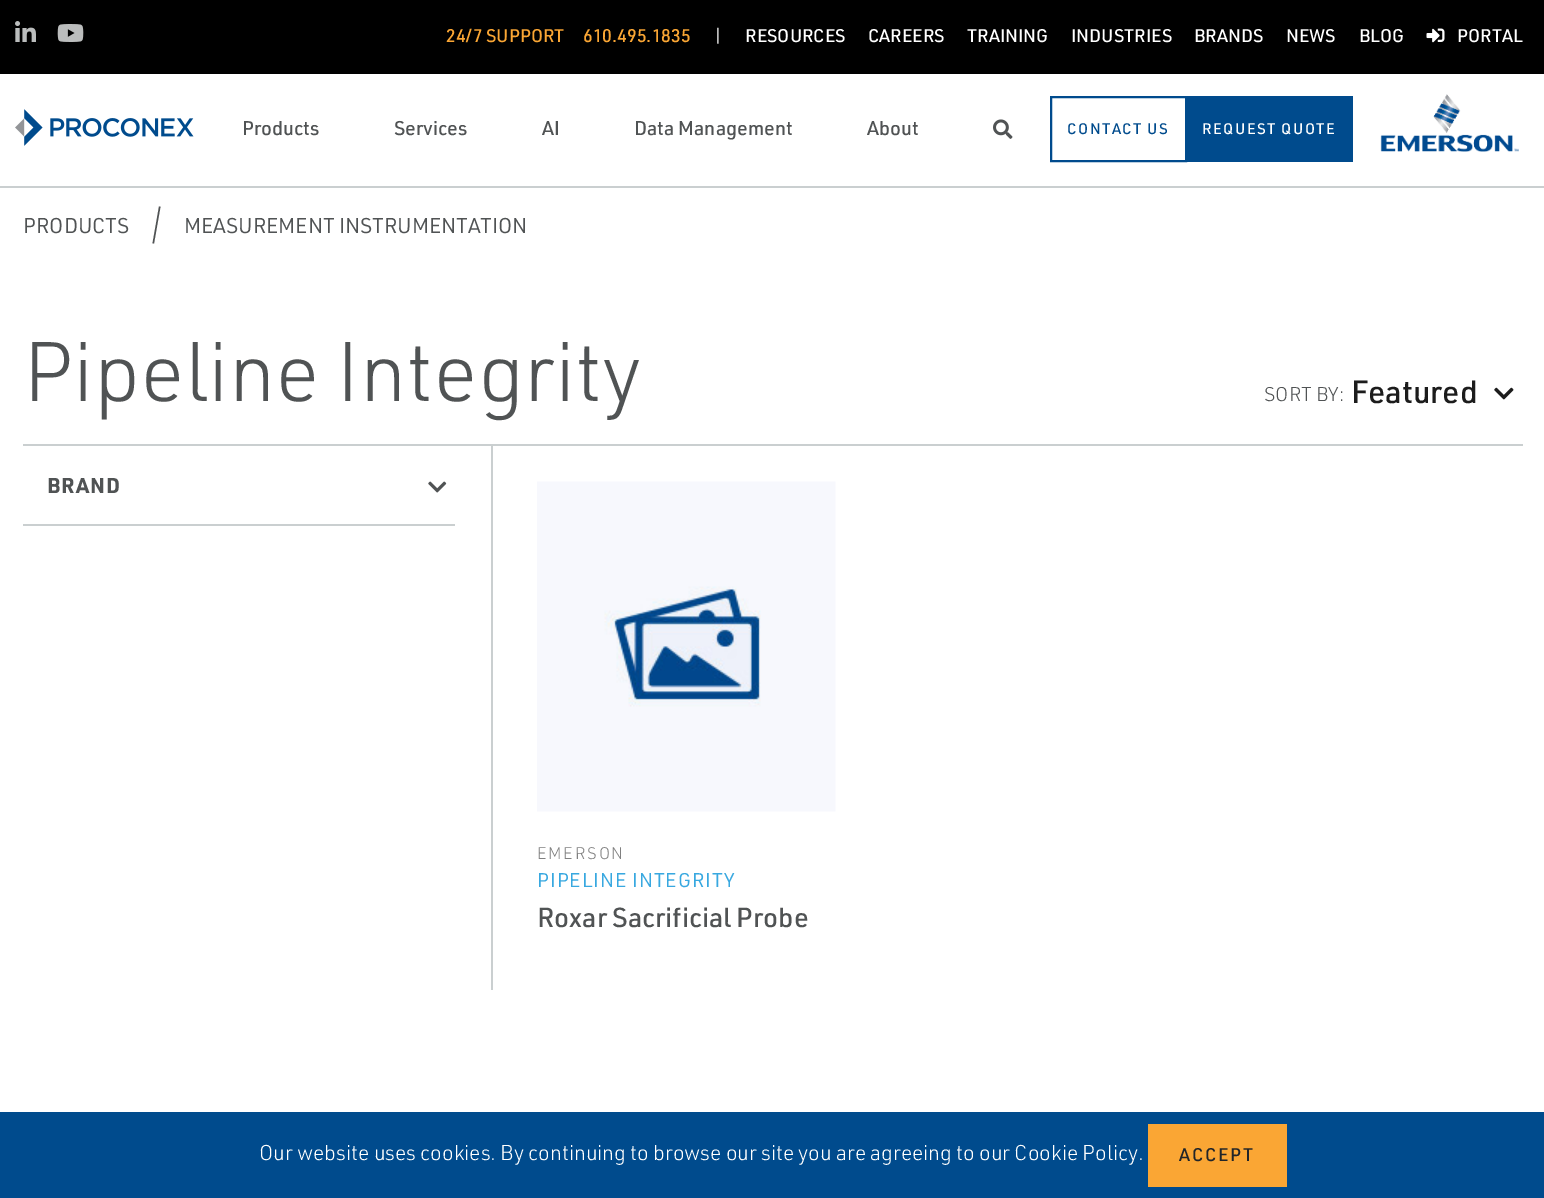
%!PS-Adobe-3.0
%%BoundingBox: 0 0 1544 1198
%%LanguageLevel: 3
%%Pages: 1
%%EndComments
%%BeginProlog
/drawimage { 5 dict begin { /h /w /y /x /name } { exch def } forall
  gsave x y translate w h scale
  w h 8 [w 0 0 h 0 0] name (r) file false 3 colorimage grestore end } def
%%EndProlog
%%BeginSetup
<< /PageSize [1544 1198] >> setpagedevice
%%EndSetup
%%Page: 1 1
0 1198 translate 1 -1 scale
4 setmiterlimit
1 setgray
0 0 1544 1198 rectfill
0.792 0.812 0.816 setrgbcolor
0 186 1544 2 rectfill
0 setgray
0 0 1544 74 rectfill
(images/1.raw) 15 21 21 21 drawimage
(images/2.raw) 57 24 27 18 drawimage
(images/3.raw) 1426 28 19 15 drawimage
(images/4.raw) 15 109 179 37 drawimage
(images/5.raw) 993 119 20 20 drawimage
0 0.294 0.553 setrgbcolor
2 setlinewidth
1051 97 135 64 rectstroke
1187 96 166 66 rectfill
(images/6.raw) 1380 94 139 58 drawimage
0.314 0.325 0.329 setrgbcolor
newpath 159 206.5 moveto 160.5 206.5 lineto 154 243.5 lineto 152.5 243.5 lineto closepath fill
0.792 0.812 0.816 setrgbcolor
23 444 1500 2 rectfill
(images/7.raw) 1494 387 20 13 drawimage
491 446 2 544 rectfill
23 524 432 2 rectfill
(images/8.raw) 428 481 19 12 drawimage
(images/9.raw) 537 481 299 331 drawimage
0 0.294 0.553 setrgbcolor
0 1112 1544 86 rectfill
0.98 0.651 0.204 setrgbcolor
1148 1124 139 63 rectfill
/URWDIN-Medium [18 0 0 -18 0 0] selectfont
446 42 moveto (24/7 SUPPORT) show
583 42 moveto (610.495.1835) show
/URWDIN-Regular [18 0 0 -18 0 0] selectfont
1 setgray
713 42 moveto (|) show
/URWDIN-Medium [18 0 0 -18 0 0] selectfont
745 42 moveto (RESOURCES) show
868 42 moveto (CAREERS) show
967 42 moveto (TRAINING) show
1071 42 moveto (INDUSTRIES) show
1194 42 moveto (BRANDS) show
1286 42 moveto (NEWS) show
1359 42 moveto (BLOG) show
1457 42 moveto (PORTAL) show
/URWDIN-Medium [19.5 0 0 -19.5 0 0] selectfont
0.314 0.325 0.329 setrgbcolor
242 135 moveto (Products) show
394 135 moveto (Services) show
542 135 moveto (AI) show
634 135 moveto (Data Management) show
867 135 moveto (About) show
/URWDIN-Medium [15 0 0 -15 0 0] selectfont
0 0.294 0.553 setrgbcolor
1067 134 moveto 1.5 0 (CONTACT US) ashow
1 setgray
1202 134 moveto 1.5 0 (REQUEST QUOTE) ashow
/URWDIN-Regular [21 0 0 -21 0 0] selectfont
0.314 0.325 0.329 setrgbcolor
23 233 moveto (PRODUCTS) show
184 233 moveto (MEASUREMENT INSTRUMENTATION) show
/URWDIN-Light [82.5 0 0 -82.5 0 0] selectfont
23 401 moveto (Pipeline Integrity) show
/URWDIN-Light [19.5 0 0 -19.5 0 0] selectfont
1264 401 moveto (SORT BY:) show
/URWDIN-Medium [31.5 0 0 -31.5 0 0] selectfont
0.11 setgray
1351 403 moveto (Featured) show
/URWDIN-Bold [21 0 0 -21 0 0] selectfont
0.314 0.325 0.329 setrgbcolor
47 493 moveto 1 0 (BRAND) ashow
/URWDIN-Light [16.5 0 0 -16.5 0 0] selectfont
0.502 setgray
537 859 moveto 1.75 0 (EMERSON) ashow
/URWDIN-Regular [19.5 0 0 -19.5 0 0] selectfont
0.22 0.659 0.878 setrgbcolor
537 887 moveto 1 0 (PIPELINE INTEGRITY) ashow
/URWDIN-Medium [27 0 0 -27 0 0] selectfont
0.314 0.325 0.329 setrgbcolor
537 927 moveto (Roxar Sacrificial Probe) show
/URWDIN-Light [21 0 0 -21 0 0] selectfont
1 setgray
259 1160 moveto (Our website uses cookies. By continuing to browse our site you are agreeing to our Cookie Policy.) show
/URWDIN-Medium [18 0 0 -18 0 0] selectfont
0.129 0.145 0.161 setrgbcolor
1179 1161 moveto 1.75 0 (ACCEPT) ashow
showpage
%%EOF
